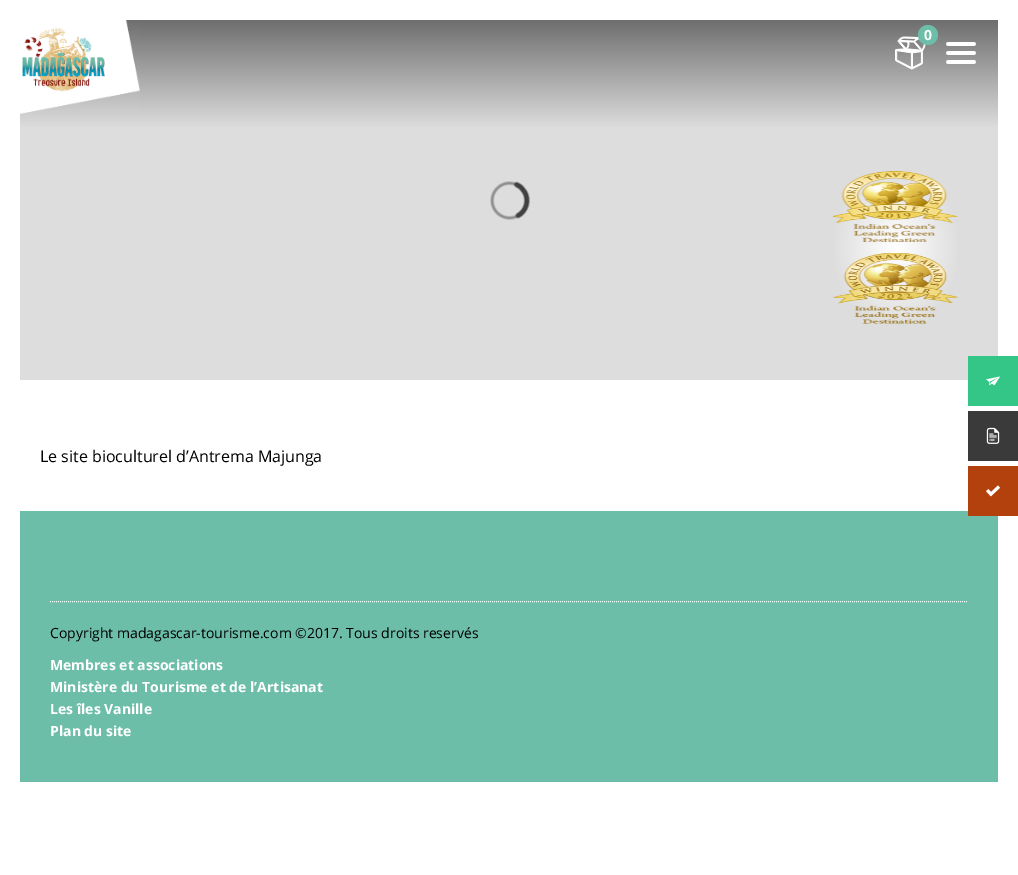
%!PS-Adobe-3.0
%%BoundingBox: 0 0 1018 875
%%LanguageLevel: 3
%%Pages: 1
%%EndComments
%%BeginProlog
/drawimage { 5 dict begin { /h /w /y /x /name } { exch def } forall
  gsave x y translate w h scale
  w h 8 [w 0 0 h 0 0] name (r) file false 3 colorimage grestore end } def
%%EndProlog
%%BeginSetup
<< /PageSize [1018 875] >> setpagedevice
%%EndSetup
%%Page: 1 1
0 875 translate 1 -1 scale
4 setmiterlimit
1 setgray
0 0 1018 875 rectfill
gsave newpath 20 20 moveto 998 20 lineto 998 128 lineto 20 128 lineto closepath clip newpath
<< /ShadingType 2 /ColorSpace /DeviceRGB /Coords [509 20 509 128] /Extend [true true] /Function << /FunctionType 2 /Domain [0 1] /C0 [0.431 0.431 0.431] /C1 [0.867 0.867 0.867] /N 1 >> >> shfill grestore
0.867 setgray
20 128 978 252 rectfill
(images/1.raw) 490 181 40 39 drawimage
gsave newpath 837 174 moveto 955 174 lineto 955 322 lineto 837 322 lineto closepath clip newpath 896 248 translate 88 110 scale
<< /ShadingType 3 /ColorSpace /DeviceRGB /Coords [0 0 0 0 0 1] /Extend [true true] /Function << /FunctionType 3 /Domain [0 1] /Functions [<< /FunctionType 2 /Domain [0 1] /C0 [1 1 1] /C1 [0.867 0.867 0.867] /N 1 >> << /FunctionType 2 /Domain [0 1] /C0 [0.867 0.867 0.867] /C1 [0.867 0.867 0.867] /N 1 >>] /Bounds [0.73] /Encode [0 1 0 1] >> >> shfill grestore
(images/2.raw) 833 171 125 153 drawimage
(images/3.raw) 12 20 128 94 drawimage
(images/4.raw) 895 36 31 34 drawimage
0.424 0.745 0.659 setrgbcolor
newpath 928 35 10 0 360 arc closepath fill
(images/5.raw) 946 42 30 22 drawimage
0.2 0.776 0.529 setrgbcolor
968 356 50 50 rectfill
(images/6.raw) 986 376 14 10 drawimage
0.227 setgray
968 411 50 50 rectfill
(images/7.raw) 986 427 14 17 drawimage
0.424 0.745 0.659 setrgbcolor
20 511 978 271 rectfill
0.698 0.255 0.055 setrgbcolor
968 466 50 50 rectfill
(images/8.raw) 986 485 14 12 drawimage
1 setgray
[1 1] 0 setdash
newpath 50 601.5 moveto 968 601.5 lineto stroke
/OpenSans-Bold [14 0 0 -14 0 0] selectfont
924 40 moveto (0) show
/OpenSans-Regular [16 0 0 -16 0 0] selectfont
0 setgray
40 462 moveto (Le site bioculturel d’Antrema Majunga) show
/OpenSans-Regular [14 0 0 -14 0 0] selectfont
50 638 moveto (Copyright madagascar-tourisme.com ©2017. Tous droits reservés) show
/OpenSans-Bold [14 0 0 -14 0 0] selectfont
1 setgray
50 670 moveto (Membres et associations) show
50 692 moveto (Ministère du Tourisme et de l’Artisanat) show
50 714 moveto (Les îles Vanille) show
50 736 moveto (Plan du site) show
showpage
%%EOF
